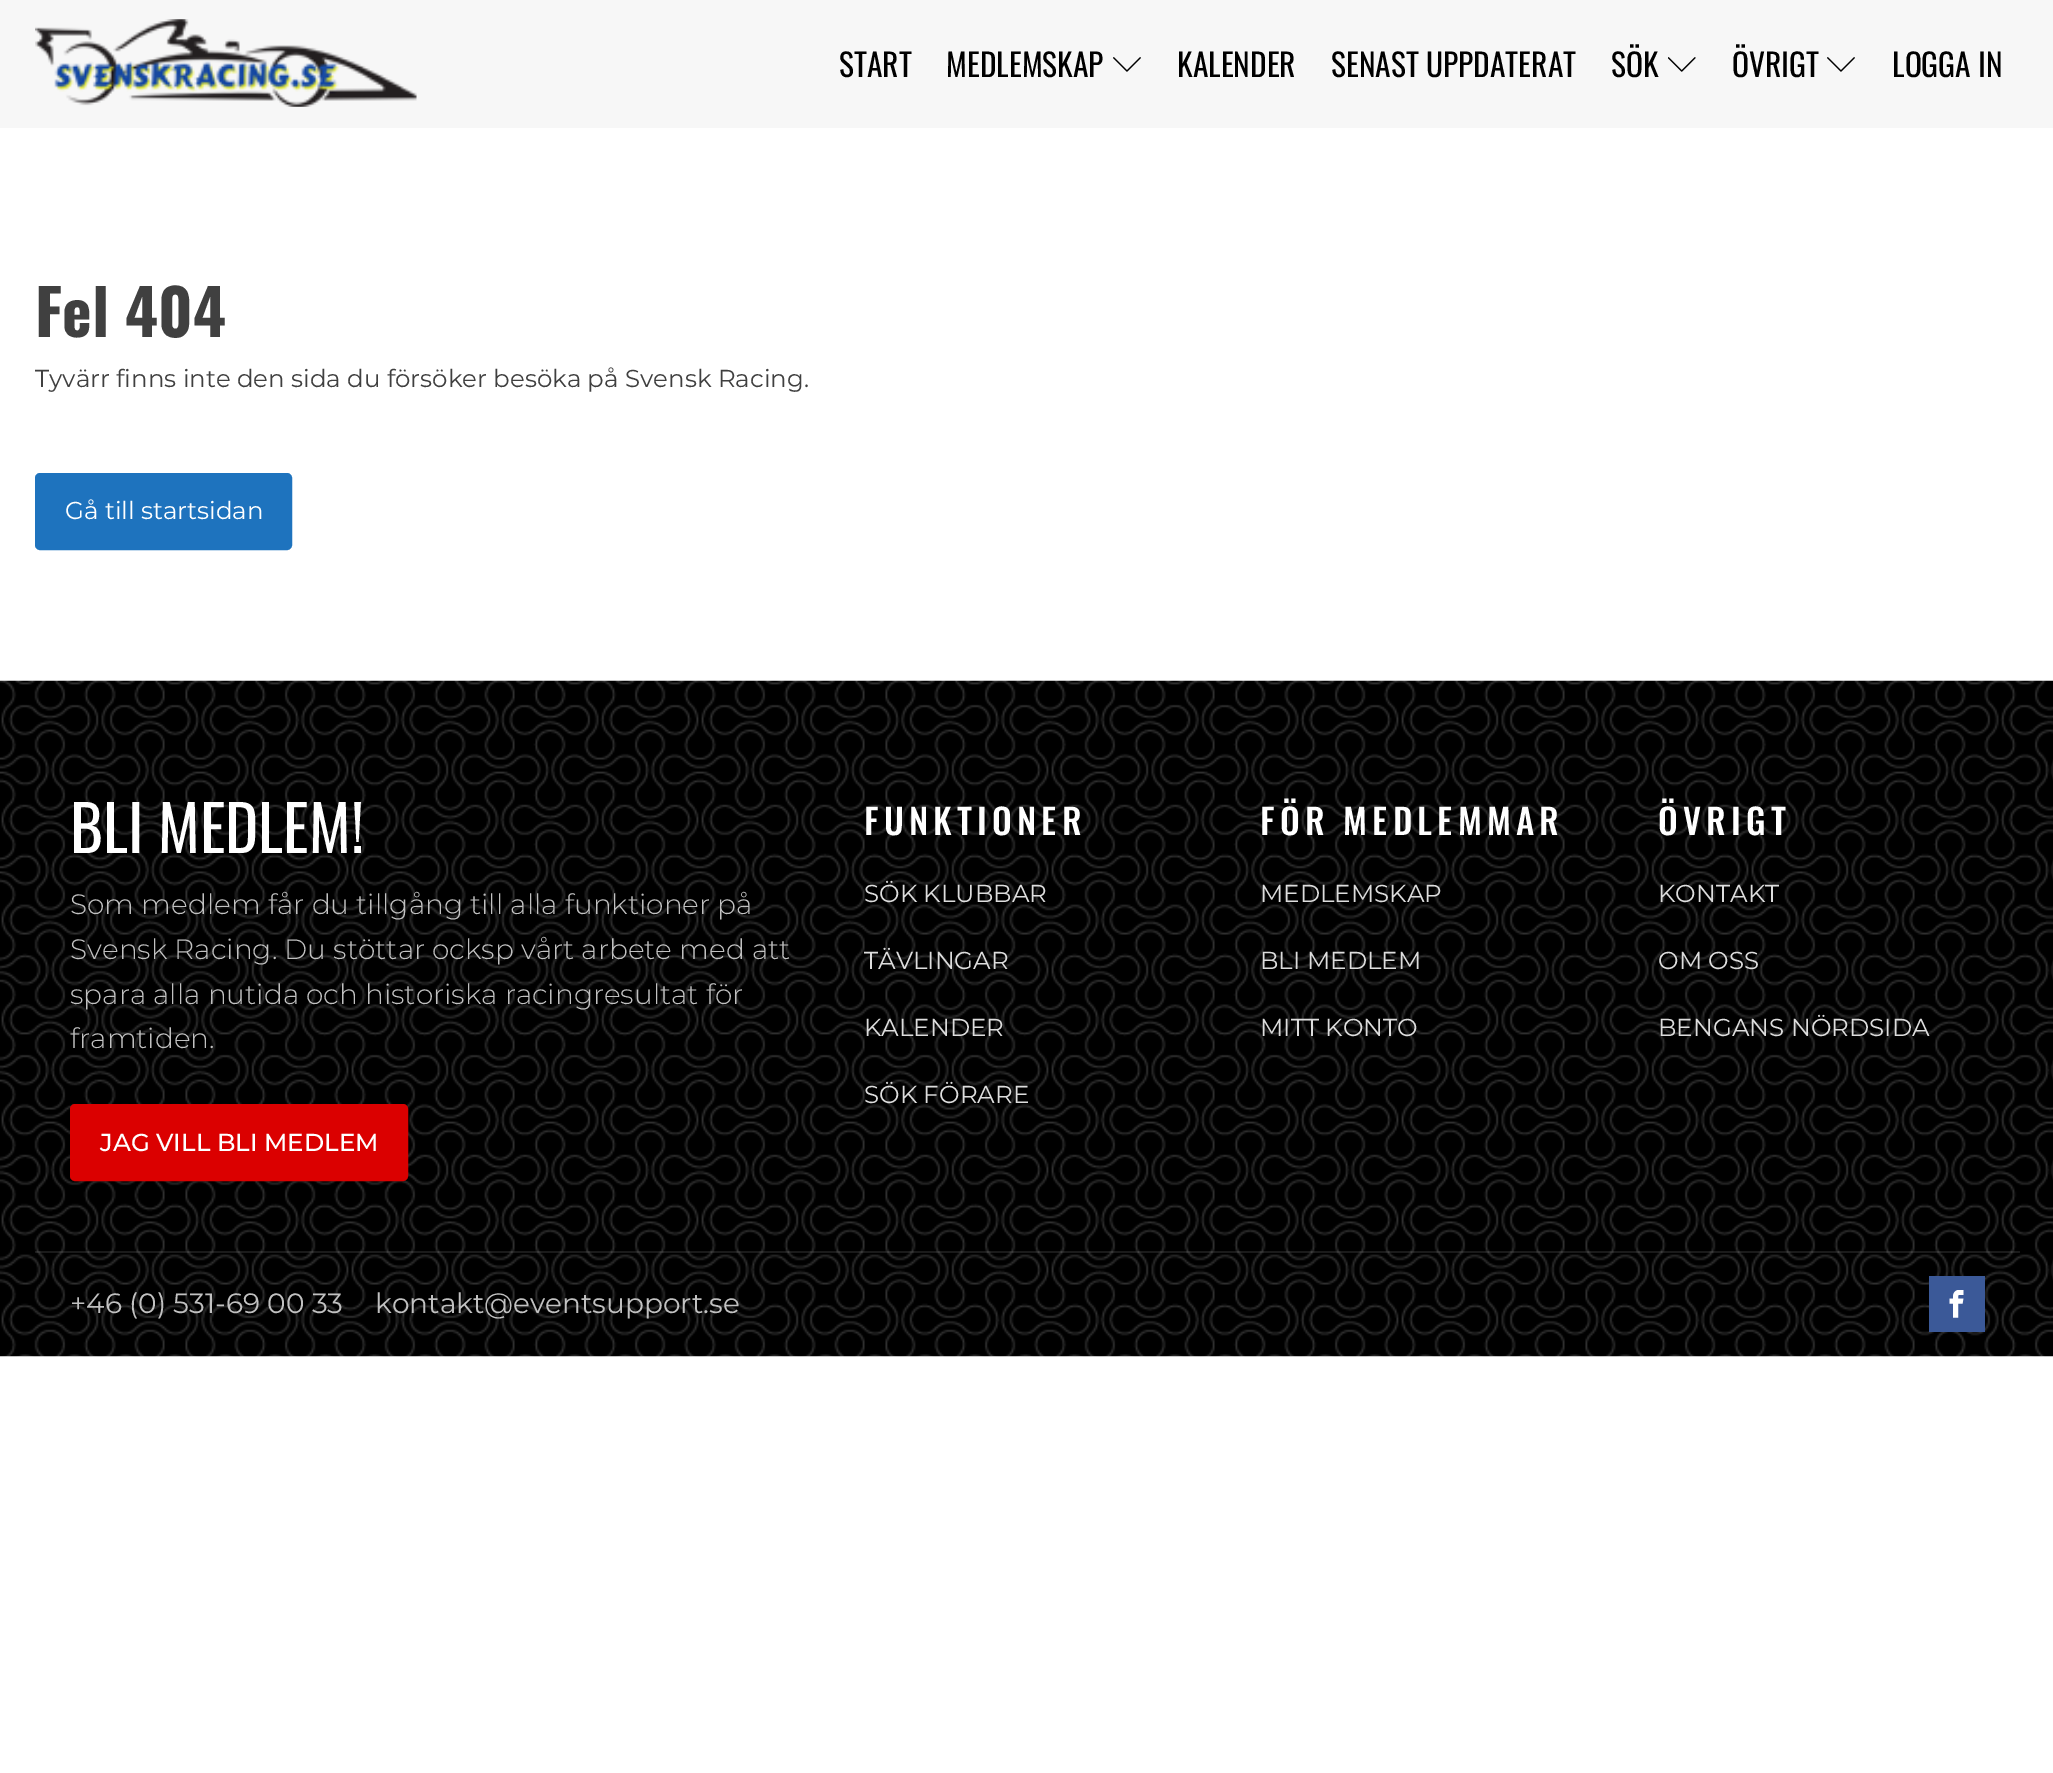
%!PS-Adobe-3.0
%%BoundingBox: 0 0 2053 1773
%%LanguageLevel: 3
%%Pages: 1
%%EndComments
%%BeginProlog
/setalpha { dup .setfillconstantalpha .setstrokeconstantalpha } def
/rrect { 5 dict begin { /r /h /w /y /x } { exch def } forall
  x r add y moveto x w add y 2 copy h add r arct x w add y h add x 1 index r arct
  x y h add x y r arct x y 2 copy exch w add exch r arct closepath end } def
/drawimage { 5 dict begin { /h /w /y /x /name } { exch def } forall
  gsave x y translate w h scale
  w h 8 [w 0 0 h 0 0] name (r) file false 3 colorimage grestore end } def
%%EndProlog
%%BeginSetup
<< /PageSize [2053 1773] /PageUsesTransparency true >> setpagedevice
%%EndSetup
%%Page: 1 1
0 .pushpdf14devicefilter
0 1773 translate 1 -1 scale
4 setmiterlimit
1 setgray
0 0 2053 1773 rectfill
0.969 setgray
0 0 2053 128 rectfill
(images/1.raw) 35 19 382 88 drawimage
(images/2.raw) 1113 57 28 15 drawimage
(images/3.raw) 1668 57 28 15 drawimage
(images/2.raw) 1827 57 28 15 drawimage
0.118 0.451 0.745 setrgbcolor
36 474 255 75 4 rrect gsave fill grestore
2 setlinewidth
stroke
(images/4.raw) 0 680 2053 677 drawimage
0.1 setalpha
1 setgray
35 1251 1985 2 rectfill
1 setalpha
0.859 0 0 setrgbcolor
71 1105 336 75 4 rrect gsave fill grestore
stroke
0.231 0.349 0.596 setrgbcolor
1929 1276 56 56 rectfill
(images/5.raw) 1949 1290 15 28 drawimage
/Oswald-Regular [31.5 0 0 -31.5 0 0] selectfont
0 setgray
839 77 moveto (START) show
946 77 moveto (MEDLEMSKAP) show
1177 77 moveto (KALENDER) show
1331 77 moveto (SENAST UPPDATERAT) show
1611 77 moveto (SÖK) show
1732 77 moveto (ÖVRIGT) show
1892 77 moveto (LOGGA IN) show
/Oswald-Bold [63 0 0 -63 0 0] selectfont
0.251 setgray
35 337 moveto (Fel 404) show
/Montserrat-Regular [24.5 0 0 -24.5 0 0] selectfont
35 387 moveto (Tyvärr finns inte den sida du försöker besöka på Svensk Racing.) show
1 setgray
65 519 moveto (Gå till startsidan) show
/Oswald-Regular [63 0 0 -63 0 0] selectfont
70 853 moveto (BLI MEDLEM!) show
/Montserrat-Light [28 0 0 -28 0 0] selectfont
0.757 setgray
70 914 moveto (Som medlem får du tillgång till alla funktioner på) show
70 959 moveto (Svensk Racing. Du stöttar ocksp vårt arbete med att) show
70 1004 moveto (spara alla nutida och historiska racingresultat för) show
70 1048 moveto (framtiden.) show
/Montserrat-Medium [24.5 0 0 -24.5 0 0] selectfont
1 setgray
100 1151 moveto (JAG VILL BLI MEDLEM) show
/Oswald-Medium [35 0 0 -35 0 0] selectfont
864 835 moveto 5.25 0 (FUNKTIONER) ashow
/Montserrat-Regular [24.5 0 0 -24.5 0 0] selectfont
0.867 setgray
864 902 moveto (SÖK KLUBBAR) show
864 969 moveto (TÄVLINGAR) show
864 1036 moveto (KALENDER) show
864 1103 moveto (SÖK FÖRARE) show
/Oswald-Medium [35 0 0 -35 0 0] selectfont
1 setgray
1260 835 moveto 5.25 0 (FÖR MEDLEMMAR) ashow
/Montserrat-Regular [24.5 0 0 -24.5 0 0] selectfont
0.867 setgray
1260 902 moveto (MEDLEMSKAP) show
1260 969 moveto (BLI MEDLEM) show
1260 1036 moveto (MITT KONTO) show
/Oswald-Medium [35 0 0 -35 0 0] selectfont
1 setgray
1658 835 moveto 5.25 0 (ÖVRIGT) ashow
/Montserrat-Regular [24.5 0 0 -24.5 0 0] selectfont
0.867 setgray
1658 902 moveto (KONTAKT) show
1658 969 moveto (OM OSS) show
1658 1036 moveto (BENGANS NÖRDSIDA) show
/Montserrat-Regular [28 0 0 -28 0 0] selectfont
0.757 setgray
70 1313 moveto (+46 \(0\) 531-69 00 33) show
375 1313 moveto (kontakt@eventsupport.se) show
.poppdf14devicefilter showpage
%%EOF
